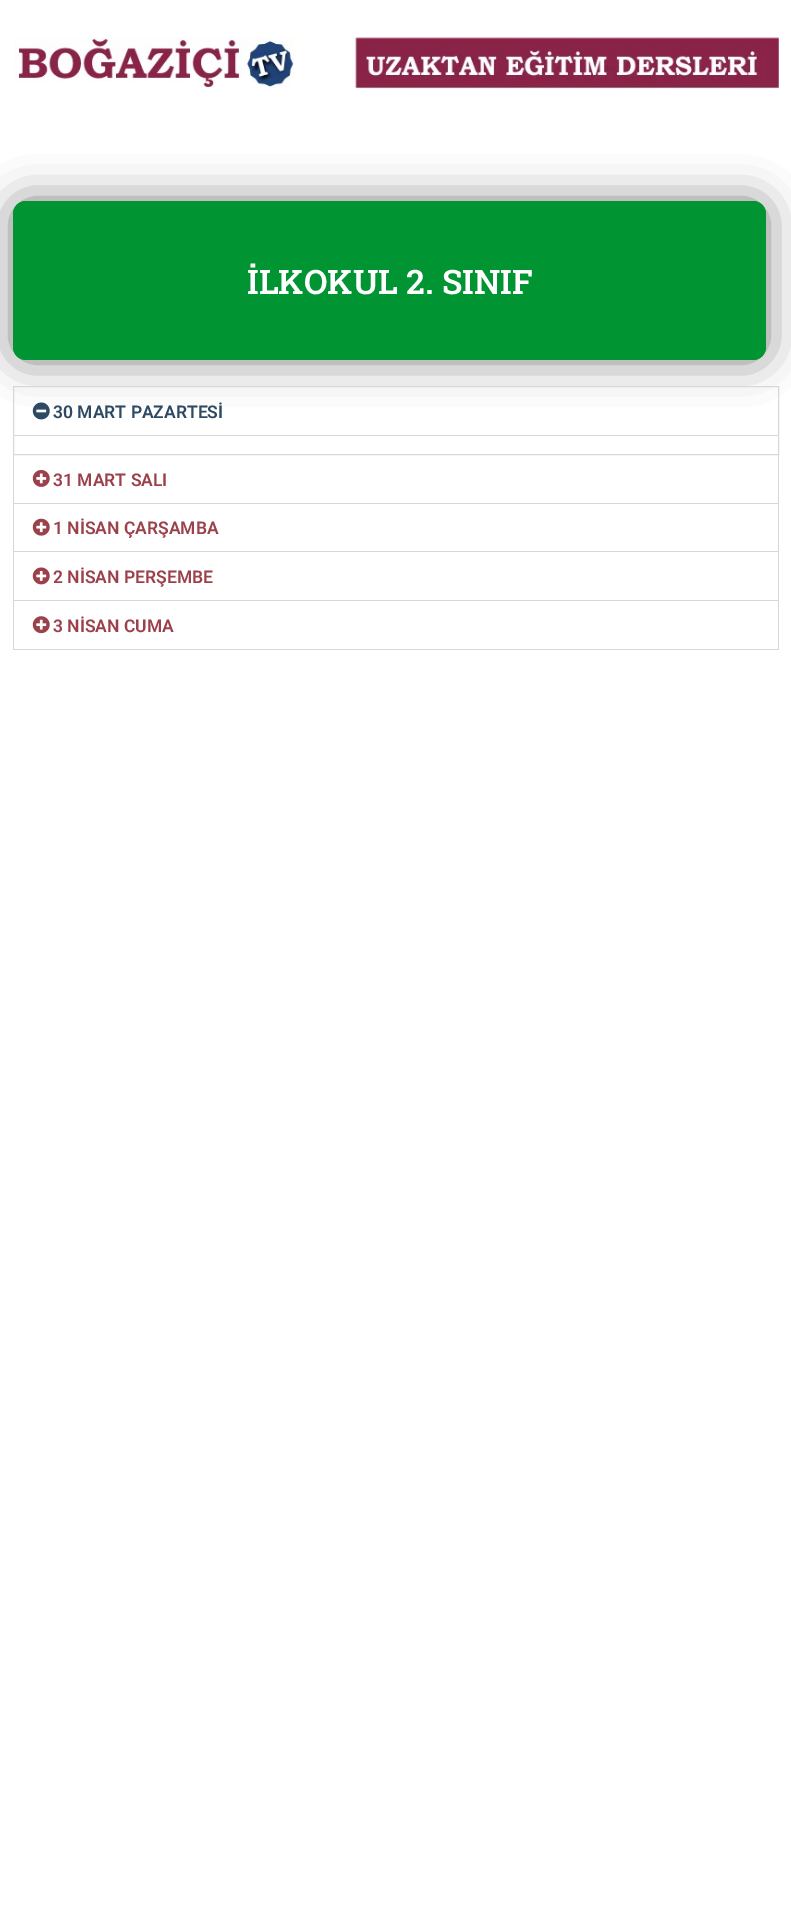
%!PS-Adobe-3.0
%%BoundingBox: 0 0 791 1912
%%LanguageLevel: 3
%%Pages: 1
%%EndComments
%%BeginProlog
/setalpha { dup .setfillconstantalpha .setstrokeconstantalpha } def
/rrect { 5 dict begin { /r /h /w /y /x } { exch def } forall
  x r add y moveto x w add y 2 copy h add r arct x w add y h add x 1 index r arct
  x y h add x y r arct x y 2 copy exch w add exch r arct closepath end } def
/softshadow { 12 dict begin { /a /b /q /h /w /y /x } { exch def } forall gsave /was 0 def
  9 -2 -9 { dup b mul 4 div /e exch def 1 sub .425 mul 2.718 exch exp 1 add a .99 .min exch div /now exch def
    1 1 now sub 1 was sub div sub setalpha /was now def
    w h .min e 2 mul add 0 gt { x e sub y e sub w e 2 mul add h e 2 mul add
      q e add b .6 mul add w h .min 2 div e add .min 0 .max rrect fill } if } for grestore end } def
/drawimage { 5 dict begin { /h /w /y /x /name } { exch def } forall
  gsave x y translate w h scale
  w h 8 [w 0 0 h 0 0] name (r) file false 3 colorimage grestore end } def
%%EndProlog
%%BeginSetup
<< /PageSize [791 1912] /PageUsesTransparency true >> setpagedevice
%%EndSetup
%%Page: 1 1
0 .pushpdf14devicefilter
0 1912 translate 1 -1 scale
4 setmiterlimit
1 setgray
0 0 791 1912 rectfill
(images/1.raw) 14 37 765 52 drawimage
0 setgray
13 201 753 159 13 21 0.5 softshadow
0 0.584 0.196 setrgbcolor
13 201 753 159 13 rrect fill
0.62 setalpha
13 201 753 159 13 rrect fill
1 setalpha
0.835 0.847 0.863 setrgbcolor
13.5 386.5 765 68 rectstroke
(images/2.raw) 32 402 18 18 drawimage
14 435 764 1 rectfill
778 455 1 195 rectfill
13 503 766 1 rectfill
13 455 1 49 rectfill
(images/3.raw) 32 470 18 17 drawimage
13 551 766 1 rectfill
13 504 1 49 rectfill
(images/4.raw) 32 518 18 18 drawimage
13 600 766 1 rectfill
13 553 1 48 rectfill
(images/5.raw) 32 567 18 18 drawimage
13 649 766 1 rectfill
13 601 1 49 rectfill
(images/6.raw) 32 616 18 18 drawimage
/RobotoSlab-SemiBold [33.75 0 0 -33.75 0 0] selectfont
1 setgray
247 294 moveto (İLKOKUL 2. SINIF) show
/Roboto-SemiBold [17.5 0 0 -17.5 0 0] selectfont
0.18 0.286 0.388 setrgbcolor
53 418 moveto (30 MART PAZARTESİ) show
0.608 0.255 0.294 setrgbcolor
53 486 moveto (31 MART SALI) show
53 534 moveto (1 NİSAN ÇARŞAMBA) show
53 583 moveto (2 NİSAN PERŞEMBE) show
53 632 moveto (3 NİSAN CUMA) show
.poppdf14devicefilter showpage
%%EOF
